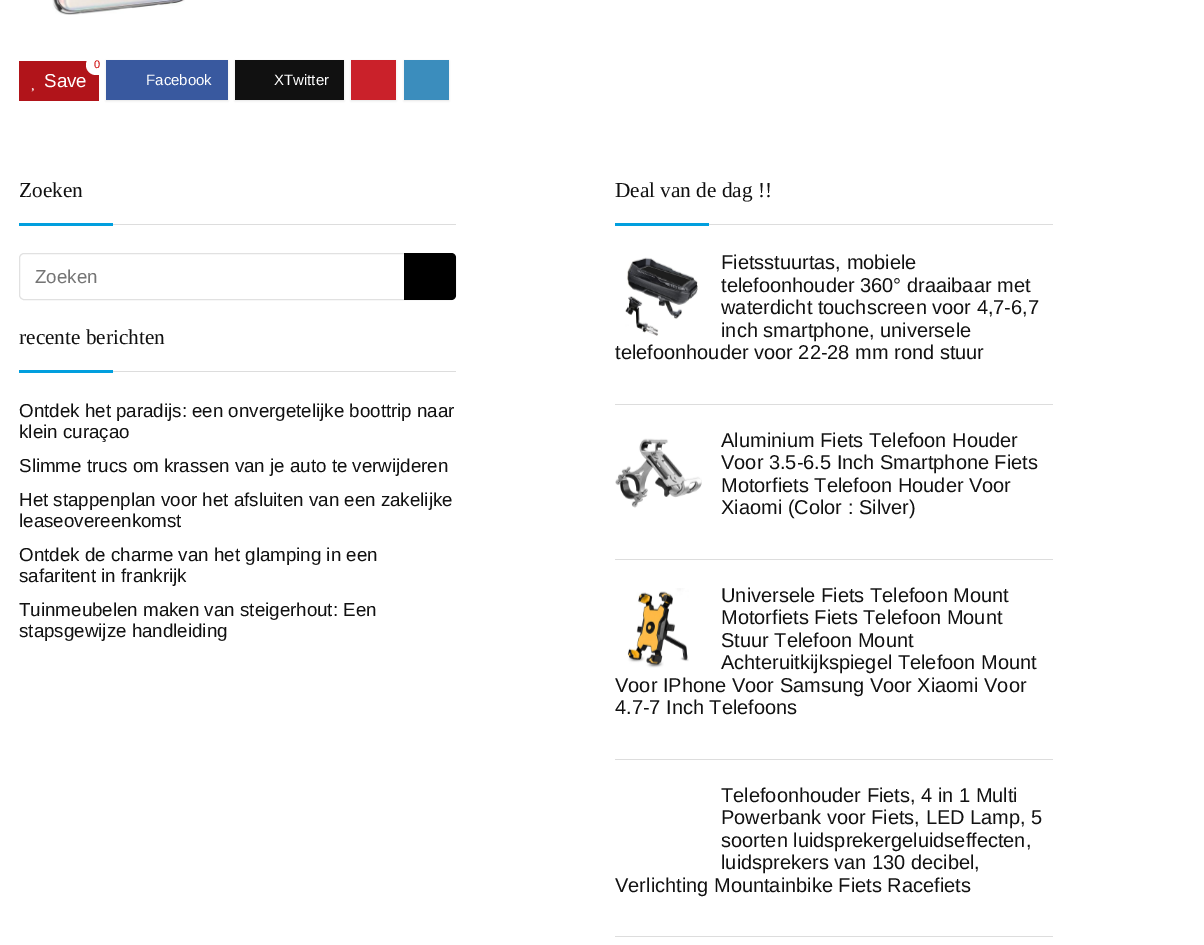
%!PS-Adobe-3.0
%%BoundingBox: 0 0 1204 945
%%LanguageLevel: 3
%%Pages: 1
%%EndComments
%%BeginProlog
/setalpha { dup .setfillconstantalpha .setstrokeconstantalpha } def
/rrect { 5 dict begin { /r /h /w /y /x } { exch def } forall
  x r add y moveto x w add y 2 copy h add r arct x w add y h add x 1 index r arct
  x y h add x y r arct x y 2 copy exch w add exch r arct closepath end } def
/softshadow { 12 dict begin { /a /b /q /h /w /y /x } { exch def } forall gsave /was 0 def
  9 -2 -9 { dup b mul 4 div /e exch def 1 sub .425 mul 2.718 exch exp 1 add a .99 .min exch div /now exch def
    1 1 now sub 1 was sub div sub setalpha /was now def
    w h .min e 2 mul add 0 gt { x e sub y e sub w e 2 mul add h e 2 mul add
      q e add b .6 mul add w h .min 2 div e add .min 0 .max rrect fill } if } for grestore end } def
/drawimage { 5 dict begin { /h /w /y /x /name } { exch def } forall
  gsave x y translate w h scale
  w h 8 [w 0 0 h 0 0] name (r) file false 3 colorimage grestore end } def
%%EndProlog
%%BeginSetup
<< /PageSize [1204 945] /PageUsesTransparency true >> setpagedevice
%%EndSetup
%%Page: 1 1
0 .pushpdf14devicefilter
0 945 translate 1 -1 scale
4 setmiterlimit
1 setgray
0 0 1204 945 rectfill
(images/1.raw) 52 0 133 15 drawimage
0.694 0.078 0.102 setrgbcolor
19 61 80 40 rectfill
1 setgray
86 55 22 20 10 rrect fill
(images/2.raw) 31 88 3 4 drawimage
0.894 setgray
106 61 122 40 0 1 1 softshadow
0.224 0.349 0.624 setrgbcolor
106 60 122 40 rectfill
0.894 setgray
235 61 109 40 0 1 1 softshadow
0.067 setgray
235 60 109 40 rectfill
0.894 setgray
351 61 45 40 0 1 1 softshadow
0.792 0.129 0.165 setrgbcolor
351 60 45 40 rectfill
0.894 setgray
404 61 45 40 0 1 1 softshadow
0.231 0.553 0.741 setrgbcolor
404 60 45 40 rectfill
0.867 setgray
113 224 343 1 rectfill
0.004 0.624 0.871 setrgbcolor
19 223 94 3 rectfill
0.882 setgray
19.5 253.5 436 46 4.5 rrect stroke
0 setgray
newpath 404 253 moveto 451 253 lineto 454 253 456 255 456 258 curveto 456 295 lineto 456 298 454 300 451 300 curveto 404 300 lineto closepath fill
0.867 setgray
709 224 344 1 rectfill
0.004 0.624 0.871 setrgbcolor
615 223 94 3 rectfill
0.867 setgray
615 404 438 1 rectfill
(images/3.raw) 625 257 73 79 drawimage
615 559 438 1 rectfill
(images/4.raw) 615 438 87 70 drawimage
615 759 438 1 rectfill
(images/5.raw) 627 588 62 80 drawimage
615 936 438 1 rectfill
113 371 343 1 rectfill
0.004 0.624 0.871 setrgbcolor
19 370 94 3 rectfill
/LiberationSans-Regular [11 0 0 -11 0 0] selectfont
0.8 0 0 setrgbcolor
94 68 moveto (0) show
/LiberationSans-Regular [18.75 0 0 -18.75 0 0] selectfont
1 setgray
44 87 moveto (Save) show
/LiberationSans-Regular [15 0 0 -15 0 0] selectfont
146 85 moveto (Facebook) show
274 85 moveto (XTwitter) show
/LiberationSerif-Regular [21.25 0 0 -21.25 0 0] selectfont
0.067 setgray
19 197 moveto (Zoeken) show
/LiberationSans-Regular [18.75 0 0 -18.75 0 0] selectfont
0.459 setgray
35 283 moveto (Zoeken) show
/LiberationSerif-Regular [21.25 0 0 -21.25 0 0] selectfont
0.067 setgray
615 197 moveto (Deal van de dag !!) show
/LiberationSans-Regular [20 0 0 -20 0 0] selectfont
721 269 moveto (Fietsstuurtas, mobiele) show
721 292 moveto (telefoonhouder 360° draaibaar met) show
721 314 moveto (waterdicht touchscreen voor 4,7-6,7) show
721 337 moveto (inch smartphone, universele) show
615 359 moveto (telefoonhouder voor 22-28 mm rond stuur) show
721 447 moveto (Aluminium Fiets Telefoon Houder) show
721 469 moveto (Voor 3.5-6.5 Inch Smartphone Fiets) show
721 492 moveto (Motorfiets Telefoon Houder Voor) show
721 514 moveto (Xiaomi \(Color : Silver\)) show
721 602 moveto (Universele Fiets Telefoon Mount) show
721 624 moveto (Motorfiets Fiets Telefoon Mount) show
721 647 moveto (Stuur Telefoon Mount) show
721 669 moveto (Achteruitkijkspiegel Telefoon Mount) show
615 692 moveto (Voor IPhone Voor Samsung Voor Xiaomi Voor) show
615 714 moveto (4.7-7 Inch Telefoons) show
721 802 moveto (Telefoonhouder Fiets, 4 in 1 Multi) show
721 824 moveto (Powerbank voor Fiets, LED Lamp, 5) show
721 847 moveto (soorten luidsprekergeluidseffecten,) show
721 869 moveto (luidsprekers van 130 decibel,) show
615 892 moveto (Verlichting Mountainbike Fiets Racefiets) show
/LiberationSerif-Regular [21.25 0 0 -21.25 0 0] selectfont
19 344 moveto (recente berichten) show
/LiberationSans-Regular [18.75 0 0 -18.75 0 0] selectfont
19 417 moveto (Ontdek het paradijs: een onvergetelijke boottrip naar) show
19 438 moveto (klein curaçao) show
19 472 moveto (Slimme trucs om krassen van je auto te verwijderen) show
19 506 moveto (Het stappenplan voor het afsluiten van een zakelijke) show
19 527 moveto (leaseovereenkomst) show
19 561 moveto (Ontdek de charme van het glamping in een) show
19 582 moveto (safaritent in frankrijk) show
19 616 moveto (Tuinmeubelen maken van steigerhout: Een) show
19 637 moveto (stapsgewijze handleiding) show
.poppdf14devicefilter showpage
%%EOF
